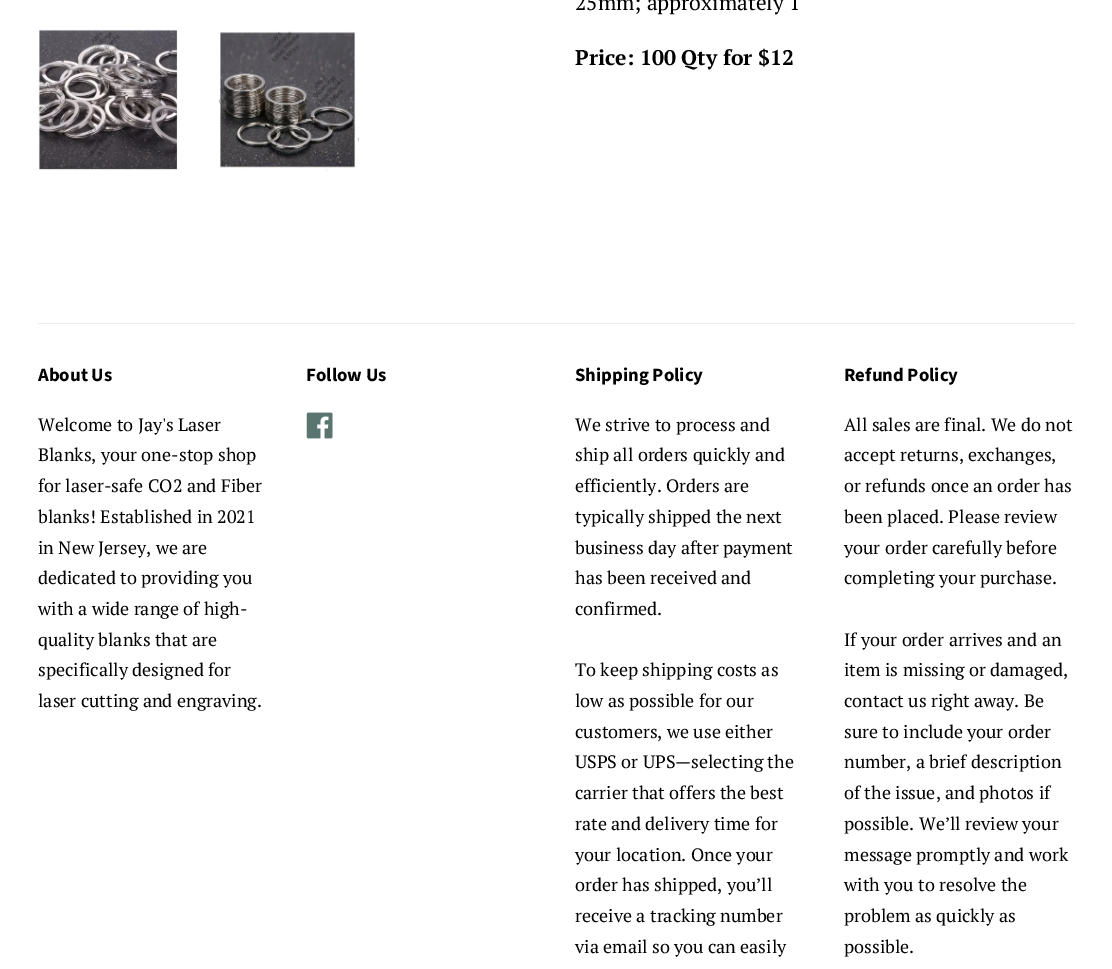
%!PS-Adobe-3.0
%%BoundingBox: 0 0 1112 969
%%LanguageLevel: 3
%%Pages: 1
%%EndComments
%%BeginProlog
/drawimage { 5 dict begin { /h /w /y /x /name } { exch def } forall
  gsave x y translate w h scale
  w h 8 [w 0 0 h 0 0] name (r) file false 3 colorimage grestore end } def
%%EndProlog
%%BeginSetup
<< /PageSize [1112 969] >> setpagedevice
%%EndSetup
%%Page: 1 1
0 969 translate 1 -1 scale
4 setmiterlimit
1 setgray
0 0 1112 969 rectfill
(images/1.raw) 38 29 141 141 drawimage
(images/2.raw) 218 31 141 140 drawimage
0.922 setgray
38 323 1037 1 rectfill
(images/3.raw) 306 412 27 27 drawimage
/PTSerif-Regular [21.25 0 0 -21.25 0 0] selectfont
0 setgray
575 10 moveto (25mm; approximately 1) show
/PTSerif-Bold [21.25 0 0 -21.25 0 0] selectfont
575 65 moveto (Price: 100 Qty for $12) show
/SourceSansPro-Bold [18.75 0 0 -18.75 0 0] selectfont
38 381 moveto (About Us) show
/PTSerif-Regular [18 0 0 -18 0 0] selectfont
38 431 moveto (Welcome to Jay's Laser) show
38 461 moveto (Blanks, your one-stop shop) show
38 492 moveto (for laser-safe CO2 and Fiber) show
38 523 moveto (blanks! Established in 2021) show
38 554 moveto (in New Jersey, we are) show
38 584 moveto (dedicated to providing you) show
38 615 moveto (with a wide range of high-) show
38 646 moveto (quality blanks that are) show
38 676 moveto (specifically designed for) show
38 707 moveto (laser cutting and engraving.) show
/SourceSansPro-Bold [18.75 0 0 -18.75 0 0] selectfont
306 381 moveto (Follow Us) show
575 381 moveto (Shipping Policy) show
/PTSerif-Regular [18 0 0 -18 0 0] selectfont
575 431 moveto (We strive to process and) show
575 461 moveto (ship all orders quickly and) show
575 492 moveto (efficiently. Orders are) show
575 523 moveto (typically shipped the next) show
575 554 moveto (business day after payment) show
575 584 moveto (has been received and) show
575 615 moveto (confirmed.) show
575 676 moveto (To keep shipping costs as) show
575 707 moveto (low as possible for our) show
575 738 moveto (customers, we use either) show
575 768 moveto (USPS or UPS—selecting the) show
575 799 moveto (carrier that offers the best) show
575 830 moveto (rate and delivery time for) show
575 861 moveto (your location. Once your) show
575 891 moveto (order has shipped, you’ll) show
575 922 moveto (receive a tracking number) show
575 953 moveto (via email so you can easily) show
/SourceSansPro-Bold [18.75 0 0 -18.75 0 0] selectfont
844 381 moveto (Refund Policy) show
/PTSerif-Regular [18 0 0 -18 0 0] selectfont
844 431 moveto (All sales are final. We do not) show
844 461 moveto (accept returns, exchanges,) show
844 492 moveto (or refunds once an order has) show
844 523 moveto (been placed. Please review) show
844 554 moveto (your order carefully before) show
844 584 moveto (completing your purchase.) show
844 646 moveto (If your order arrives and an) show
844 676 moveto (item is missing or damaged,) show
844 707 moveto (contact us right away. Be) show
844 738 moveto (sure to include your order) show
844 768 moveto (number, a brief description) show
844 799 moveto (of the issue, and photos if) show
844 830 moveto (possible. We’ll review your) show
844 861 moveto (message promptly and work) show
844 891 moveto (with you to resolve the) show
844 922 moveto (problem as quickly as) show
844 953 moveto (possible.) show
showpage
%%EOF
